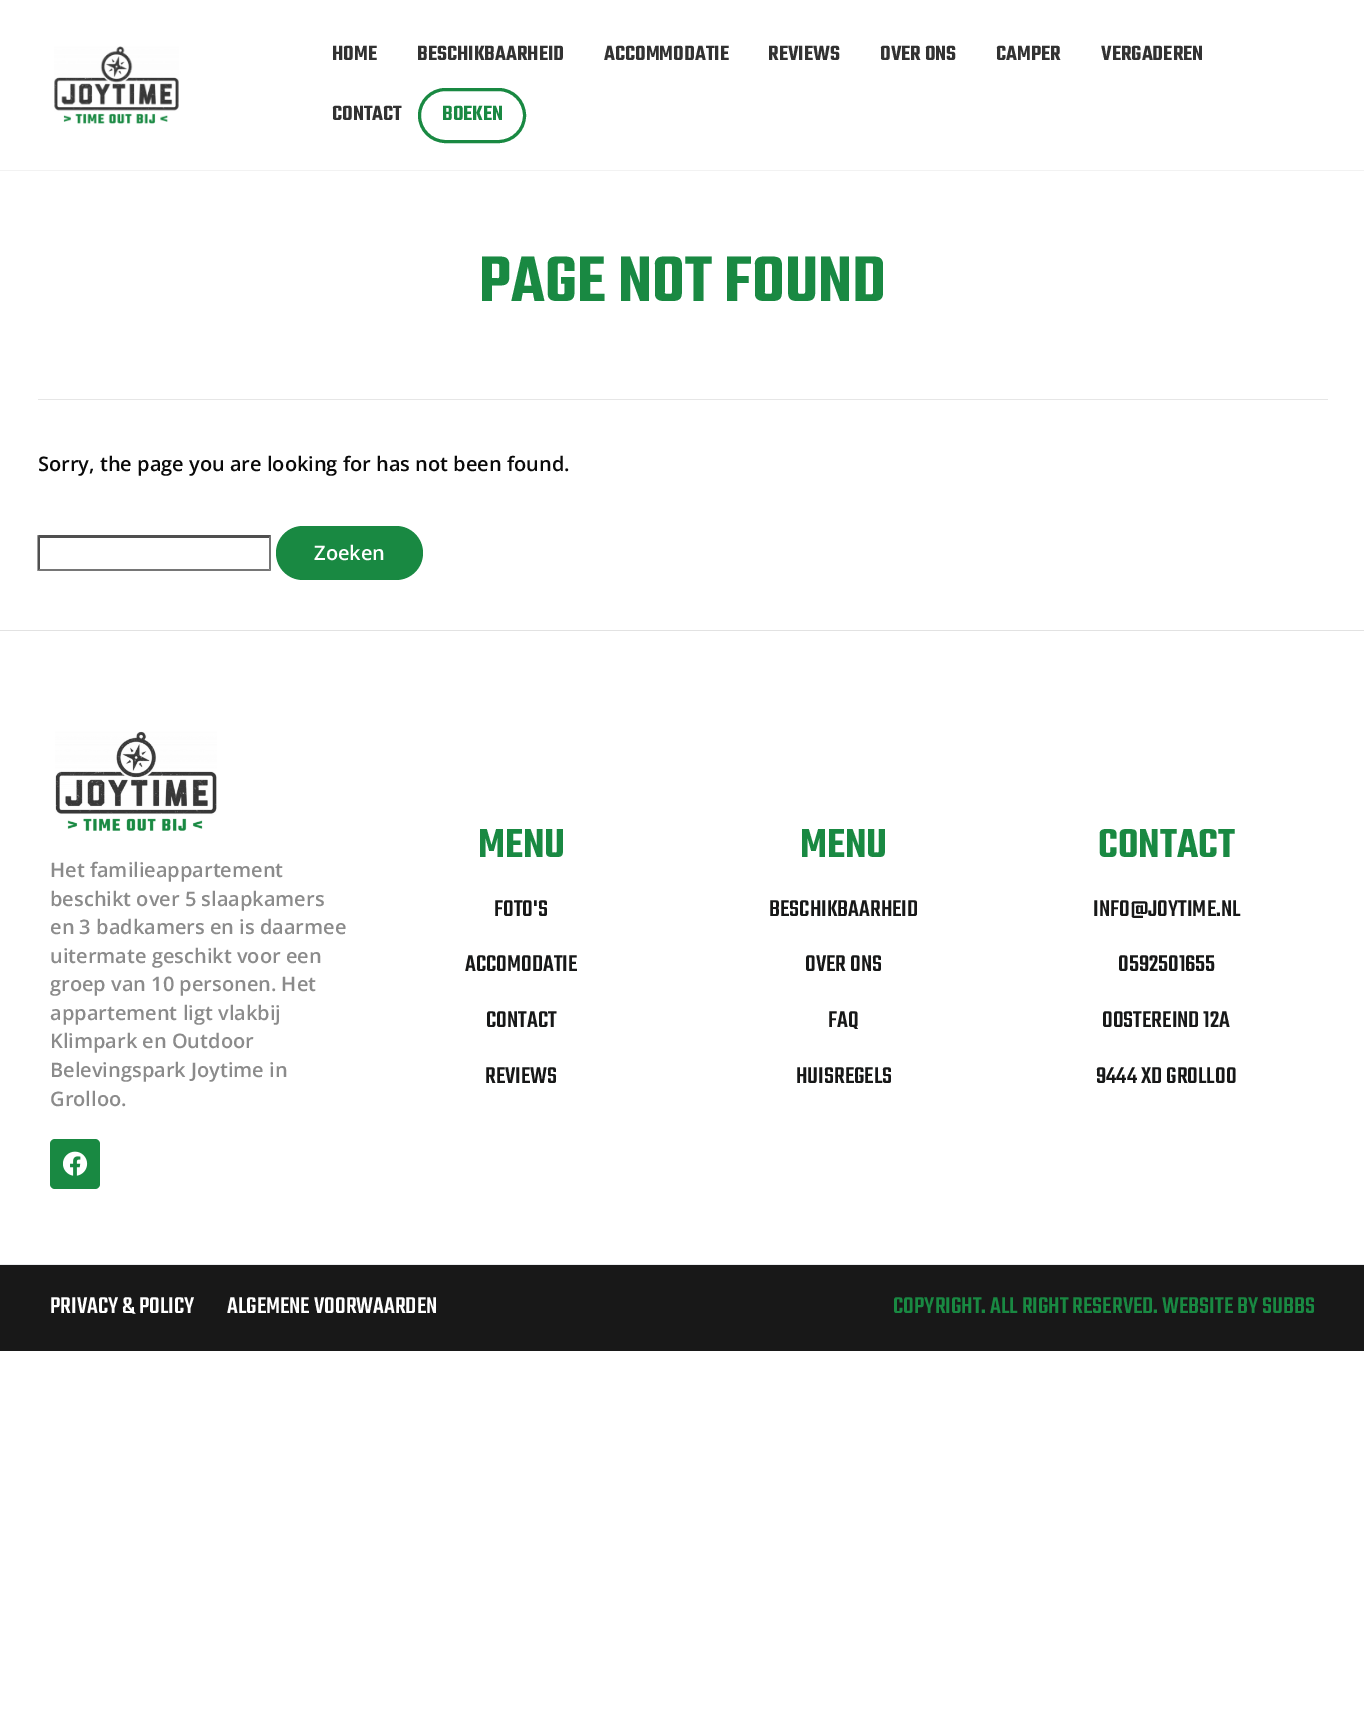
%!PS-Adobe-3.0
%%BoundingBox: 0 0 1364 1714
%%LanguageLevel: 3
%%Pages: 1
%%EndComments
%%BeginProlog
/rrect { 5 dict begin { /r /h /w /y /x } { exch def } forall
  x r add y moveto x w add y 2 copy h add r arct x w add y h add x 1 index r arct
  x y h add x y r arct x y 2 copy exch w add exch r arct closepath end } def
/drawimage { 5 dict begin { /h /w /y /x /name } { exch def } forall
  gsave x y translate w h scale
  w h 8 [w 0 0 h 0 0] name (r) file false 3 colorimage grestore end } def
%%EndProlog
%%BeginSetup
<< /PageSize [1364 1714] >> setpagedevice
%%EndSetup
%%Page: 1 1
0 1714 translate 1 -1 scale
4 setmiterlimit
1 setgray
0 0 1364 1714 rectfill
0.949 setgray
0 170 1364 1 rectfill
(images/1.raw) 54 46 125 78 drawimage
0.098 0.537 0.259 setrgbcolor
3 setlinewidth
419.5 89.5 105 52 26 rrect stroke
0.902 setgray
38 399 1290 1 rectfill
0.31 setgray
newpath 38 535 moveto 271 535 lineto 269 538 lineto 40 538 lineto closepath fill
0.463 setgray
newpath 271 535 moveto 271 571 lineto 269 569 lineto 269 537.5 lineto closepath fill
newpath 271 571 moveto 38 571 lineto 40 569 lineto 269 569 lineto closepath fill
0.31 setgray
newpath 37.5 571 moveto 37.5 535 lineto 40 537.5 lineto 40 569 lineto closepath fill
0.098 0.537 0.259 setrgbcolor
276 526 147 54 27 rrect fill
0.886 setgray
0 630 1364 1 rectfill
(images/2.raw) 55 731 162 100 drawimage
0.098 0.537 0.259 setrgbcolor
50 1139 50 50 5 rrect fill
(images/3.raw) 63 1151 25 25 drawimage
0.094 setgray
0 1265 1364 86 rectfill
0.922 0.925 0.937 setrgbcolor
0 1264 1364 1 rectfill
/Teko-SemiBold [22.5 0 0 -22.5 0 0] selectfont
0.196 setgray
332 60 moveto (HOME) show
417 60 moveto (BESCHIKBAARHEID) show
604 60 moveto (ACCOMMODATIE) show
768 60 moveto (REVIEWS) show
880 60 moveto (OVER ONS) show
996 60 moveto (CAMPER) show
1101 60 moveto (VERGADEREN) show
332 120 moveto (CONTACT) show
0.098 0.537 0.259 setrgbcolor
442 120 moveto (BOEKEN) show
/Teko-SemiBold [70 0 0 -70 0 0] selectfont
479 301 moveto (PAGE NOT FOUND) show
/OpenSans-SemiBold [20 0 0 -20 0 0] selectfont
0.039 setgray
38 471 moveto (Sorry, the page you are looking for has not been found.) show
1 setgray
314 560 moveto (Zoeken) show
0.545 setgray
50 877 moveto (Het familieappartement) show
50 906 moveto (beschikt over 5 slaapkamers) show
50 934 moveto (en 3 badkamers en is daarmee) show
50 963 moveto (uitermate geschikt voor een) show
50 991 moveto (groep van 10 personen. Het) show
50 1020 moveto (appartement ligt vlakbij) show
50 1048 moveto (Klimpark en Outdoor) show
50 1077 moveto (Belevingspark Joytime in) show
50 1106 moveto (Grolloo.) show
/Teko-SemiBold [44 0 0 -44 0 0] selectfont
0.098 0.537 0.259 setrgbcolor
478 857 moveto (MENU) show
/Teko-Medium [25 0 0 -25 0 0] selectfont
0.09 0.094 0.094 setrgbcolor
494 916 moveto (FOTO'S) show
465 971 moveto (ACCOMODATIE) show
486 1027 moveto (CONTACT) show
485 1083 moveto (REVIEWS) show
/Teko-SemiBold [44 0 0 -44 0 0] selectfont
0.098 0.537 0.259 setrgbcolor
800 857 moveto (MENU) show
/Teko-Medium [25 0 0 -25 0 0] selectfont
0.09 0.094 0.094 setrgbcolor
769 916 moveto (BESCHIKBAARHEID) show
805 971 moveto (OVER ONS) show
828 1027 moveto (FAQ) show
796 1083 moveto (HUISREGELS) show
/Teko-SemiBold [44 0 0 -44 0 0] selectfont
0.098 0.537 0.259 setrgbcolor
1098 857 moveto (CONTACT) show
/Teko-Medium [25 0 0 -25 0 0] selectfont
0.09 0.094 0.094 setrgbcolor
1093 916 moveto (INFO@JOYTIME.NL) show
1118 971 moveto (0592501655) show
1102 1027 moveto (OOSTEREIND 12A) show
1096 1083 moveto (9444 XD GROLLOO) show
1 setgray
50 1313 moveto (PRIVACY & POLICY) show
227 1313 moveto (ALGEMENE VOORWAARDEN) show
0.098 0.537 0.259 setrgbcolor
893 1313 moveto (COPYRIGHT. ALL RIGHT RESERVED. WEBSITE BY SUBBS) show
showpage
%%EOF
